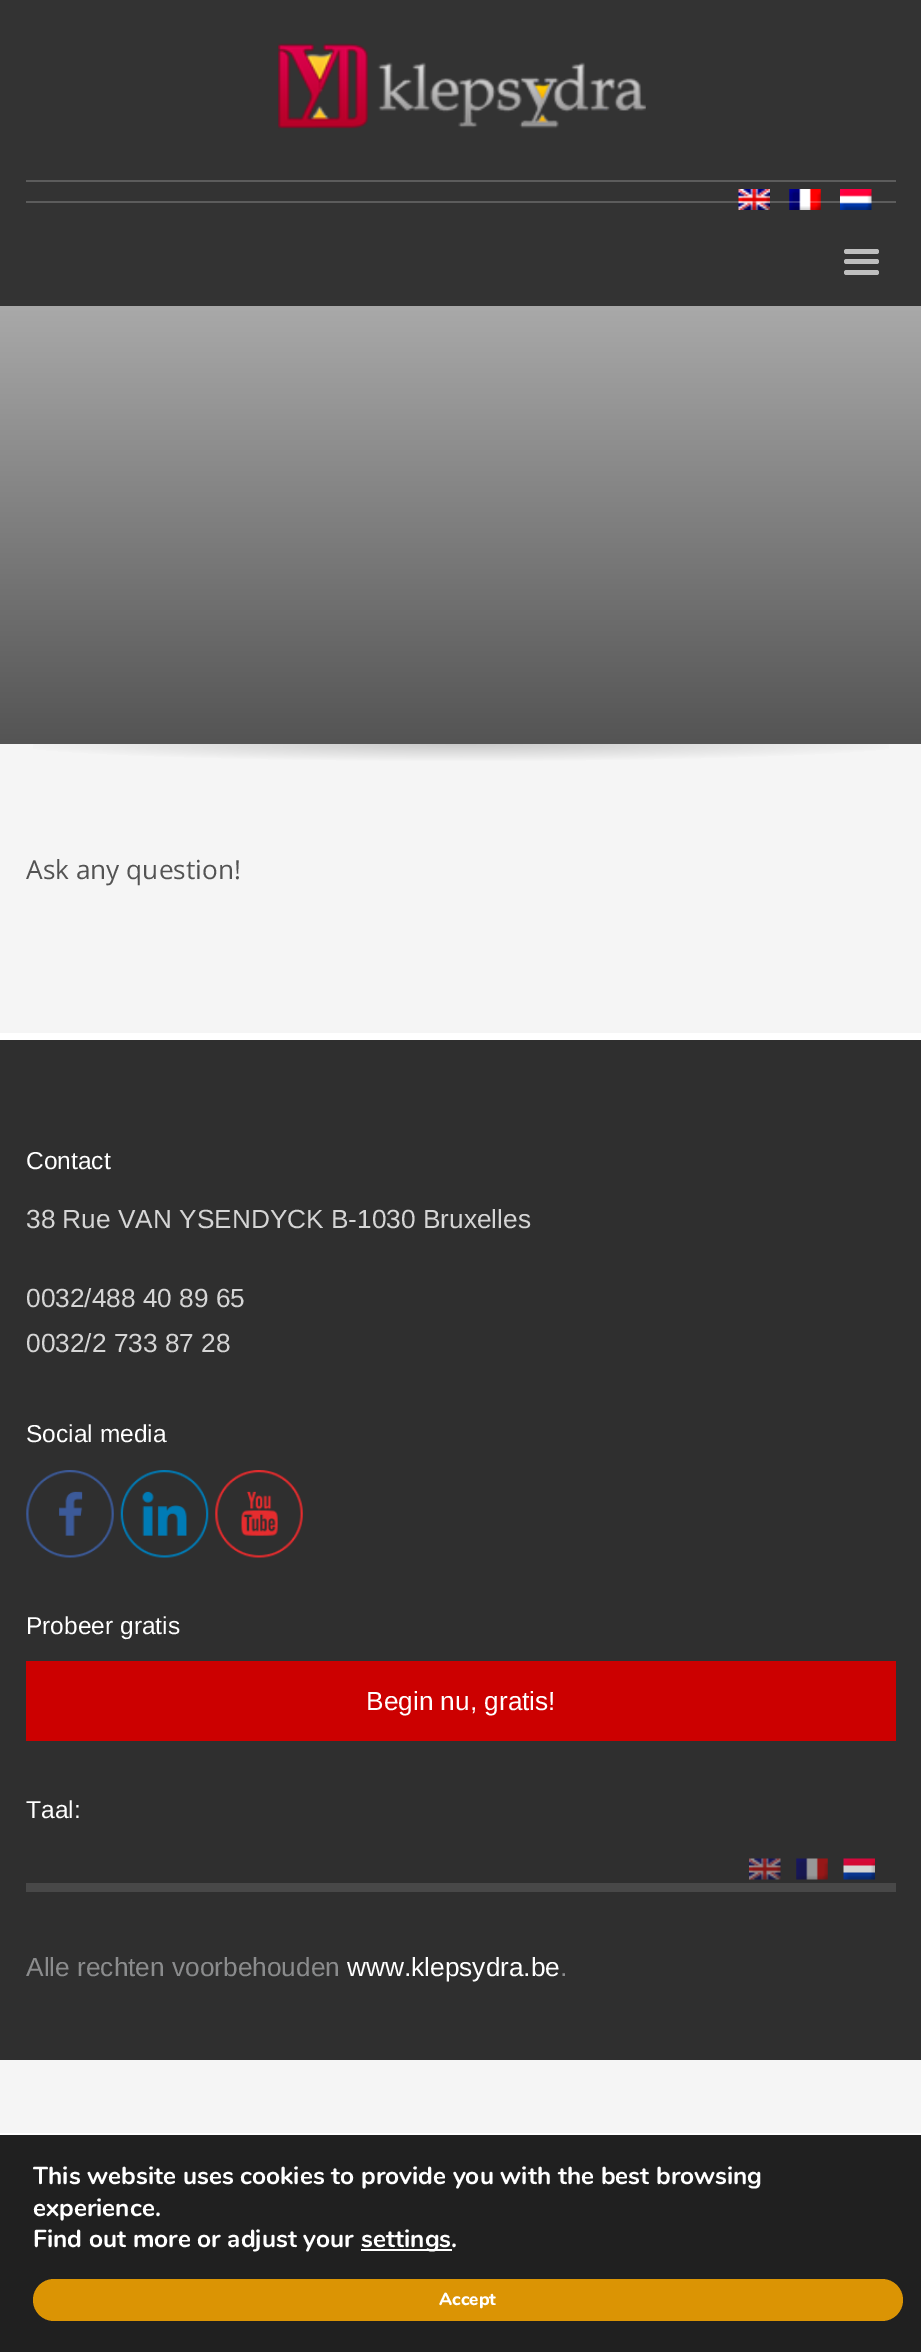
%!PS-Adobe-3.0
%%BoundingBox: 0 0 921 2352
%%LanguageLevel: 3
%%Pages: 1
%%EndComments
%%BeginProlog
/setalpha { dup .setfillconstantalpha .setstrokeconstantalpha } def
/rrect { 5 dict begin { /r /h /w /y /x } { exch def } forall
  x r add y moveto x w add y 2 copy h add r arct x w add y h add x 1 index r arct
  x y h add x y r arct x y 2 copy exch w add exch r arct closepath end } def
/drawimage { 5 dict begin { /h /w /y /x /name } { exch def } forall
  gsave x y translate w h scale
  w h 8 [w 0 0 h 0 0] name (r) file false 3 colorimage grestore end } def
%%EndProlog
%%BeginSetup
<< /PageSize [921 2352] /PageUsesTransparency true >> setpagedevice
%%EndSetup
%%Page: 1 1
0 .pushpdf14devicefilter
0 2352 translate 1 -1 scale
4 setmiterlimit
0.961 setgray
0 0 921 2352 rectfill
0.2 setgray
0 0 921 306 rectfill
(images/1.raw) 278 43 368 86 drawimage
0.361 setgray
26 180 870 2 rectfill
(images/2.raw) 738 189 32 21 drawimage
(images/3.raw) 789 189 32 21 drawimage
(images/4.raw) 840 189 32 21 drawimage
0.2 setalpha
1 setgray
26 201 870 2 rectfill
1 setalpha
0.745 setgray
844 249 35 5 2.5 rrect fill
844 259 35 5 2.5 rrect fill
844 270 35 5 2.5 rrect fill
gsave newpath 0 306 moveto 921 306 lineto 921 744 lineto 0 744 lineto closepath clip newpath
<< /ShadingType 2 /ColorSpace /DeviceRGB /Coords [461 306 461 744] /Extend [true true] /Function << /FunctionType 2 /Domain [0 1] /C0 [0.663 0.663 0.663] /C1 [0.329 0.329 0.329] /N 1 >> >> shfill grestore
gsave newpath 33 744 moveto 889 744 lineto 889 761 lineto 33 761 lineto closepath clip newpath 461 744 translate 652 25 scale
<< /ShadingType 3 /ColorSpace /DeviceRGB /Coords [0 0 0 0 0 1] /Extend [true true] /Function << /FunctionType 3 /Domain [0 1] /Functions [<< /FunctionType 2 /Domain [0 1] /C0 [0.788 0.788 0.788] /C1 [0.961 0.961 0.961] /N 1 >> << /FunctionType 2 /Domain [0 1] /C0 [0.961 0.961 0.961] /C1 [0.961 0.961 0.961] /N 1 >>] /Bounds [0.7] /Encode [0 1 0 1] >> >> shfill grestore
0.184 setgray
0 1040 921 1020 rectfill
1 setgray
0 1033 921 7 rectfill
(images/5.raw) 26 1470 88 88 drawimage
(images/6.raw) 120 1470 89 88 drawimage
(images/7.raw) 215 1470 88 88 drawimage
0.8 0 0 setrgbcolor
26 1661 870 80 rectfill
(images/8.raw) 749 1858 32 22 drawimage
(images/9.raw) 796 1858 32 22 drawimage
(images/10.raw) 843 1858 32 22 drawimage
0.282 setgray
26 1883 870 9 rectfill
0.125 setgray
0 2135 921 217 rectfill
1 setgray
0 2133 921 2 rectfill
361 2249 91 2 rectfill
0.859 0.58 0.016 setrgbcolor
33 2279 870 42 21 rrect fill
/OpenSans-Regular [26.25 0 0 -26.25 0 0] selectfont
0.325 setgray
26 879 moveto (Ask any question!) show
/LiberationSans-Regular [24.5 0 0 -24.5 0 0] selectfont
1 setgray
26 1169 moveto (Contact) show
/LiberationSans-Regular [26.25 0 0 -26.25 0 0] selectfont
0.835 setgray
26 1228 moveto (38 Rue VAN YSENDYCK B-1030 Bruxelles) show
26 1307 moveto (0032/488 40 89 65) show
26 1352 moveto (0032/2 733 87 28) show
/LiberationSans-Regular [24.5 0 0 -24.5 0 0] selectfont
1 setgray
26 1442 moveto (Social media) show
26 1634 moveto (Probeer gratis) show
/LiberationSans-Regular [26.25 0 0 -26.25 0 0] selectfont
366 1710 moveto (Begin nu, gratis!) show
/LiberationSans-Regular [24.5 0 0 -24.5 0 0] selectfont
26 1818 moveto (Taal:) show
/LiberationSans-Regular [26.25 0 0 -26.25 0 0] selectfont
0.545 0.549 0.553 setrgbcolor
26 1976 moveto (Alle rechten voorbehouden) show
1 setgray
347 1976 moveto (www.klepsydra.be) show
0.545 0.549 0.553 setrgbcolor
560 1976 moveto (.) show
/Nunito-Bold [24.5 0 0 -24.5 0 0] selectfont
1 setgray
33 2184 moveto (This website uses cookies to provide you with the best browsing) show
33 2216 moveto (experience.) show
33 2247 moveto (Find out more or adjust your) show
361 2247 moveto (settings.) show
/Nunito-ExtraBold [17.5 0 0 -17.5 0 0] selectfont
439 2305 moveto (Accept) show
.poppdf14devicefilter showpage
%%EOF
